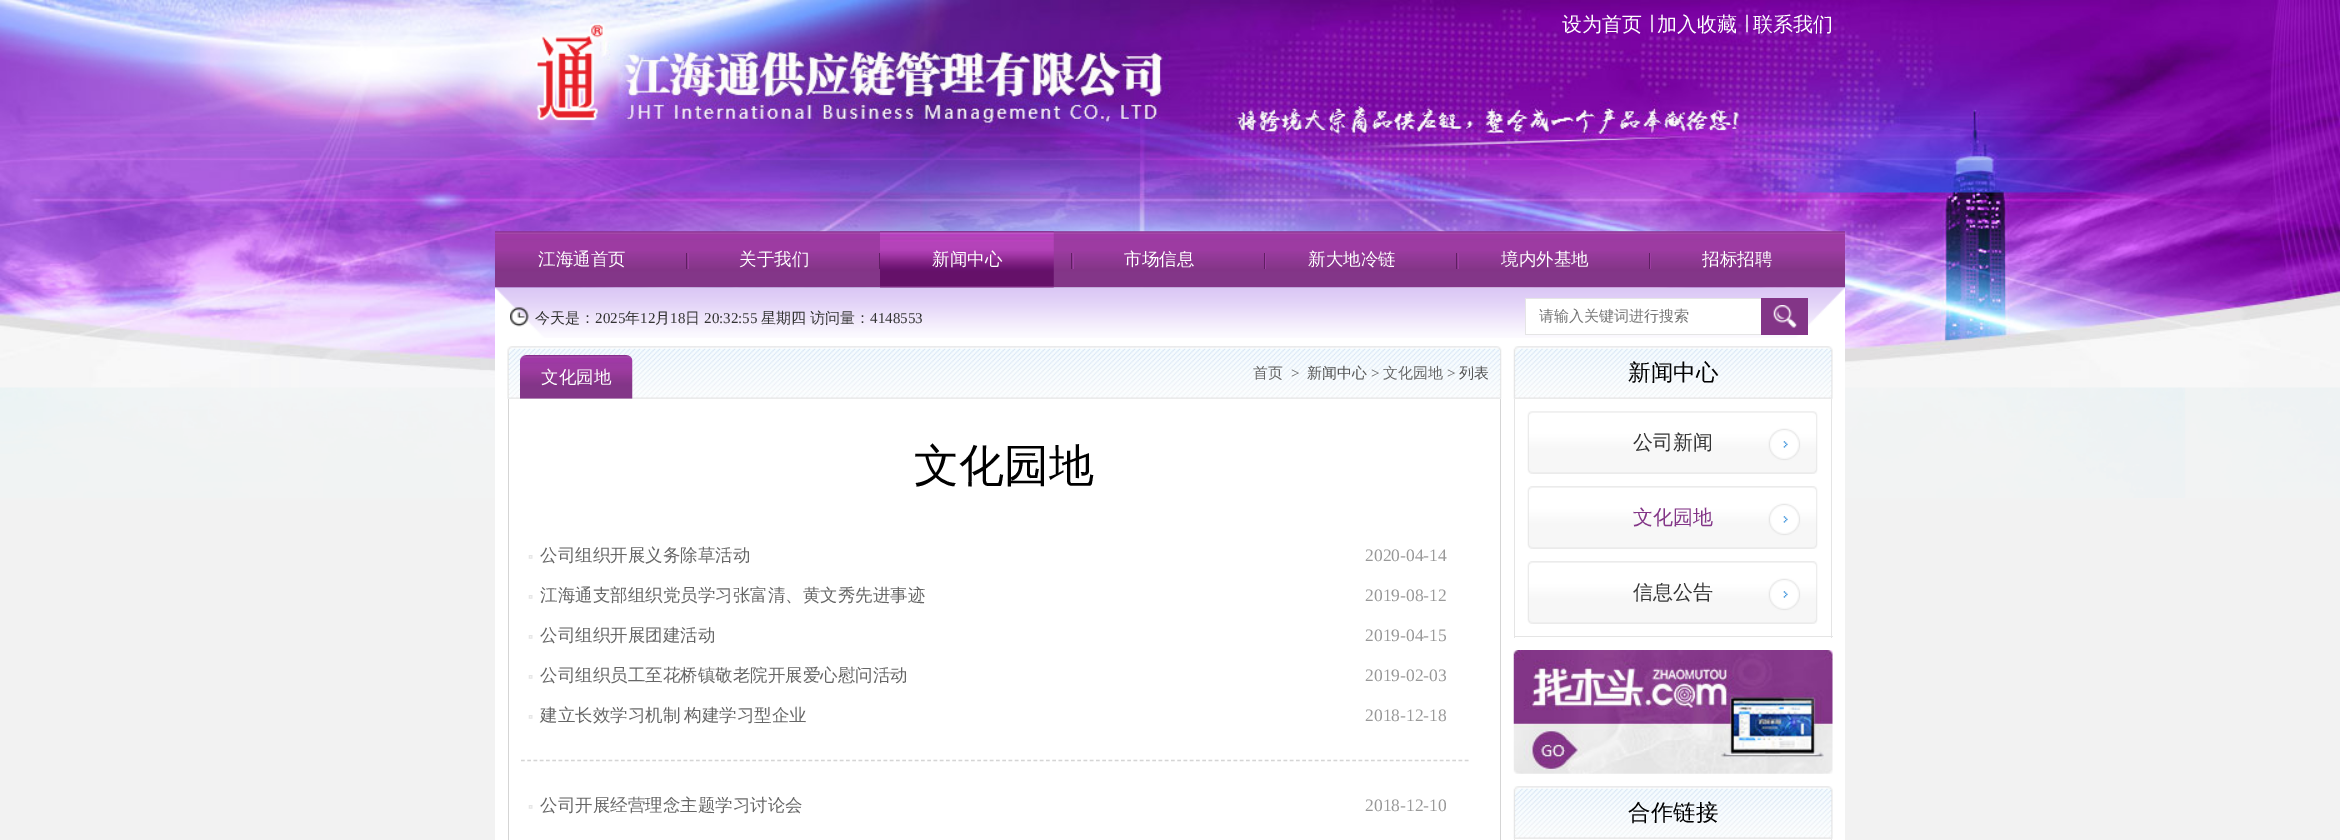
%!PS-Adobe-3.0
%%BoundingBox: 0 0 2340 840
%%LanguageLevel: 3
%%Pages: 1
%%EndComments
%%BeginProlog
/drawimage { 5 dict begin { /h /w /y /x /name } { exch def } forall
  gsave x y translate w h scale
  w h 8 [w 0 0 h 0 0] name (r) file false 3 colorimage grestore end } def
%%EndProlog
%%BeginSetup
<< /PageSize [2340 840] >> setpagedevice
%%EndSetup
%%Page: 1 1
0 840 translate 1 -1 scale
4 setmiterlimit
0.949 setgray
0 0 2340 840 rectfill
(images/1.raw) 0 387 2340 111 drawimage
(images/2.raw) 0 0 2340 388 drawimage
(images/3.raw) 495 231 1350 57 drawimage
0.373 0.118 0.384 setrgbcolor
686 253 1 16 rectfill
0.624 0.243 0.643 setrgbcolor
688 253 1 16 rectfill
0.373 0.118 0.384 setrgbcolor
879 253 1 16 rectfill
(images/5.raw) 495 287 1350 51 drawimage
(images/4.raw) 880 231 174 57 drawimage
1071 253 1 16 rectfill
0.624 0.243 0.643 setrgbcolor
1073 253 1 16 rectfill
0.373 0.118 0.384 setrgbcolor
1264 253 1 16 rectfill
0.624 0.243 0.643 setrgbcolor
1265 253 1 16 rectfill
0.373 0.118 0.384 setrgbcolor
1456 253 1 16 rectfill
0.624 0.243 0.643 setrgbcolor
1458 253 1 16 rectfill
0.373 0.118 0.384 setrgbcolor
1649 253 1 16 rectfill
0.624 0.243 0.643 setrgbcolor
1650 253 1 16 rectfill
1 setgray
495 338 1350 502 rectfill
(images/6.raw) 510 307 19 20 drawimage
1526 299 235 35 rectfill
0.898 setgray
1525 298 236 1 rectfill
1525 334 236 1 rectfill
1525 298 1 37 rectfill
0.514 0.208 0.529 setrgbcolor
1761 298 47 37 rectfill
(images/7.raw) 1773 305 24 23 drawimage
(images/8.raw) 507 346 995 53 drawimage
(images/9.raw) 520 355 113 44 drawimage
0.835 setgray
newpath 508 399 moveto 1501 399 lineto 1501 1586 lineto 1501 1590 1498 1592 1495 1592 curveto 514 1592 lineto 510 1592 508 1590 508 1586 curveto closepath 509 399 moveto 1500 399 lineto 1500 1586 lineto 1500 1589 1498 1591 1495 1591 curveto 514 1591 lineto 511 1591 509 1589 509 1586 curveto closepath eofill
(images/10.raw) 528 555 5 4 drawimage
(images/10.raw) 528 595 5 4 drawimage
(images/10.raw) 528 635 5 4 drawimage
(images/10.raw) 528 675 5 4 drawimage
(images/10.raw) 528 715 5 4 drawimage
1.2 setlinewidth
[3.75 2.5] 0 setdash
newpath 521 760.5 moveto 1469 760.5 lineto stroke
(images/10.raw) 528 805 5 4 drawimage
(images/11.raw) 1513 346 320 53 drawimage
0.898 setgray
1831 399 1 239 rectfill
1514 636 319 1 rectfill
1514 399 1 239 rectfill
(images/12.raw) 1527 411 291 63 drawimage
(images/13.raw) 1527 486 291 63 drawimage
(images/14.raw) 1527 561 291 63 drawimage
(images/15.raw) 1513 650 320 124 drawimage
(images/11.raw) 1513 786 320 53 drawimage
1831 839 1 1 rectfill
1514 839 1 1 rectfill
/WenQuanYiZenHei-Medium [20 0 0 -20 0 0] selectfont
1 setgray
1562 31 moveto (设为首页) show
1647 31 moveto (∣) show
1657 31 moveto (加入收藏) show
1742 31 moveto (∣) show
1753 31 moveto (联系我们) show
/WenQuanYiZenHei-Medium [17.5 0 0 -17.5 0 0] selectfont
538 265 moveto (江海通首页) show
739 265 moveto (关于我们) show
932 265 moveto (新闻中心) show
1124 265 moveto (市场信息) show
1308 265 moveto (新大地冷链) show
1501 265 moveto (境内外基地) show
1702 265 moveto (招标招聘) show
/WenQuanYiZenHei-Medium [15 0 0 -15 0 0] selectfont
0.2 setgray
535 323 moveto (今天是：) show
/LiberationSerif-Regular [15 0 0 -15 0 0] selectfont
595 323 moveto (2025) show
/WenQuanYiZenHei-Medium [15 0 0 -15 0 0] selectfont
625 323 moveto (年) show
/LiberationSerif-Regular [15 0 0 -15 0 0] selectfont
640 323 moveto (12) show
/WenQuanYiZenHei-Medium [15 0 0 -15 0 0] selectfont
655 323 moveto (月) show
/LiberationSerif-Regular [15 0 0 -15 0 0] selectfont
670 323 moveto (18) show
/WenQuanYiZenHei-Medium [15 0 0 -15 0 0] selectfont
685 323 moveto (日) show
/LiberationSerif-Regular [15 0 0 -15 0 0] selectfont
704 323 moveto (20:32:55) show
/WenQuanYiZenHei-Medium [15 0 0 -15 0 0] selectfont
761 323 moveto (星期四) show
810 323 moveto (访问量：) show
/LiberationSerif-Regular [15 0 0 -15 0 0] selectfont
870 323 moveto (4148553) show
/WenQuanYiZenHei-Medium [15 0 0 -15 0 0] selectfont
0.459 setgray
1539 321 moveto (请输入关键词进行搜索) show
/WenQuanYiZenHei-Medium [17.5 0 0 -17.5 0 0] selectfont
1 setgray
541 383 moveto (文化园地) show
/WenQuanYiZenHei-Medium [15 0 0 -15 0 0] selectfont
0.4 setgray
1253 378 moveto (首页) show
/LiberationSerif-Regular [15 0 0 -15 0 0] selectfont
0.333 setgray
1291 378 moveto (>) show
/WenQuanYiZenHei-Medium [15 0 0 -15 0 0] selectfont
1307 378 moveto (新闻中心) show
/LiberationSerif-Regular [15 0 0 -15 0 0] selectfont
1371 378 moveto (>) show
/WenQuanYiZenHei-Medium [15 0 0 -15 0 0] selectfont
0.4 setgray
1383 378 moveto (文化园地) show
/LiberationSerif-Regular [15 0 0 -15 0 0] selectfont
0.333 setgray
1447 378 moveto (>) show
/WenQuanYiZenHei-Medium [15 0 0 -15 0 0] selectfont
1459 378 moveto (列表) show
/WenQuanYiZenHei-Medium [45 0 0 -45 0 0] selectfont
0 setgray
914 481 moveto (文化园地) show
/WenQuanYiZenHei-Medium [17.5 0 0 -17.5 0 0] selectfont
0.4 setgray
540 561 moveto (公司组织开展义务除草活动) show
/LiberationSerif-Regular [17.5 0 0 -17.5 0 0] selectfont
0.6 setgray
1365 561 moveto (2020-04-14) show
/WenQuanYiZenHei-Medium [17.5 0 0 -17.5 0 0] selectfont
0.4 setgray
540 601 moveto (江海通支部组织党员学习张富清、黄文秀先进事迹) show
/LiberationSerif-Regular [17.5 0 0 -17.5 0 0] selectfont
0.6 setgray
1365 601 moveto (2019-08-12) show
/WenQuanYiZenHei-Medium [17.5 0 0 -17.5 0 0] selectfont
0.4 setgray
540 641 moveto (公司组织开展团建活动) show
/LiberationSerif-Regular [17.5 0 0 -17.5 0 0] selectfont
0.6 setgray
1365 641 moveto (2019-04-15) show
/WenQuanYiZenHei-Medium [17.5 0 0 -17.5 0 0] selectfont
0.4 setgray
540 681 moveto (公司组织员工至花桥镇敬老院开展爱心慰问活动) show
/LiberationSerif-Regular [17.5 0 0 -17.5 0 0] selectfont
0.6 setgray
1365 681 moveto (2019-02-03) show
/WenQuanYiZenHei-Medium [17.5 0 0 -17.5 0 0] selectfont
0.4 setgray
540 721 moveto -1 0 32 (建立长效学习机制 构建学习型企业) widthshow
/LiberationSerif-Regular [17.5 0 0 -17.5 0 0] selectfont
0.6 setgray
1365 721 moveto (2018-12-18) show
/WenQuanYiZenHei-Medium [17.5 0 0 -17.5 0 0] selectfont
0.4 setgray
540 811 moveto (公司开展经营理念主题学习讨论会) show
/LiberationSerif-Regular [17.5 0 0 -17.5 0 0] selectfont
0.6 setgray
1365 811 moveto (2018-12-10) show
/WenQuanYiZenHei-Medium [22.5 0 0 -22.5 0 0] selectfont
0 setgray
1628 380 moveto (新闻中心) show
/WenQuanYiZenHei-Medium [20 0 0 -20 0 0] selectfont
0.2 setgray
1633 449 moveto (公司新闻) show
0.514 0.208 0.529 setrgbcolor
1633 524 moveto (文化园地) show
0.2 setgray
1633 599 moveto (信息公告) show
/WenQuanYiZenHei-Medium [22.5 0 0 -22.5 0 0] selectfont
0 setgray
1628 820 moveto (合作链接) show
showpage
%%EOF
